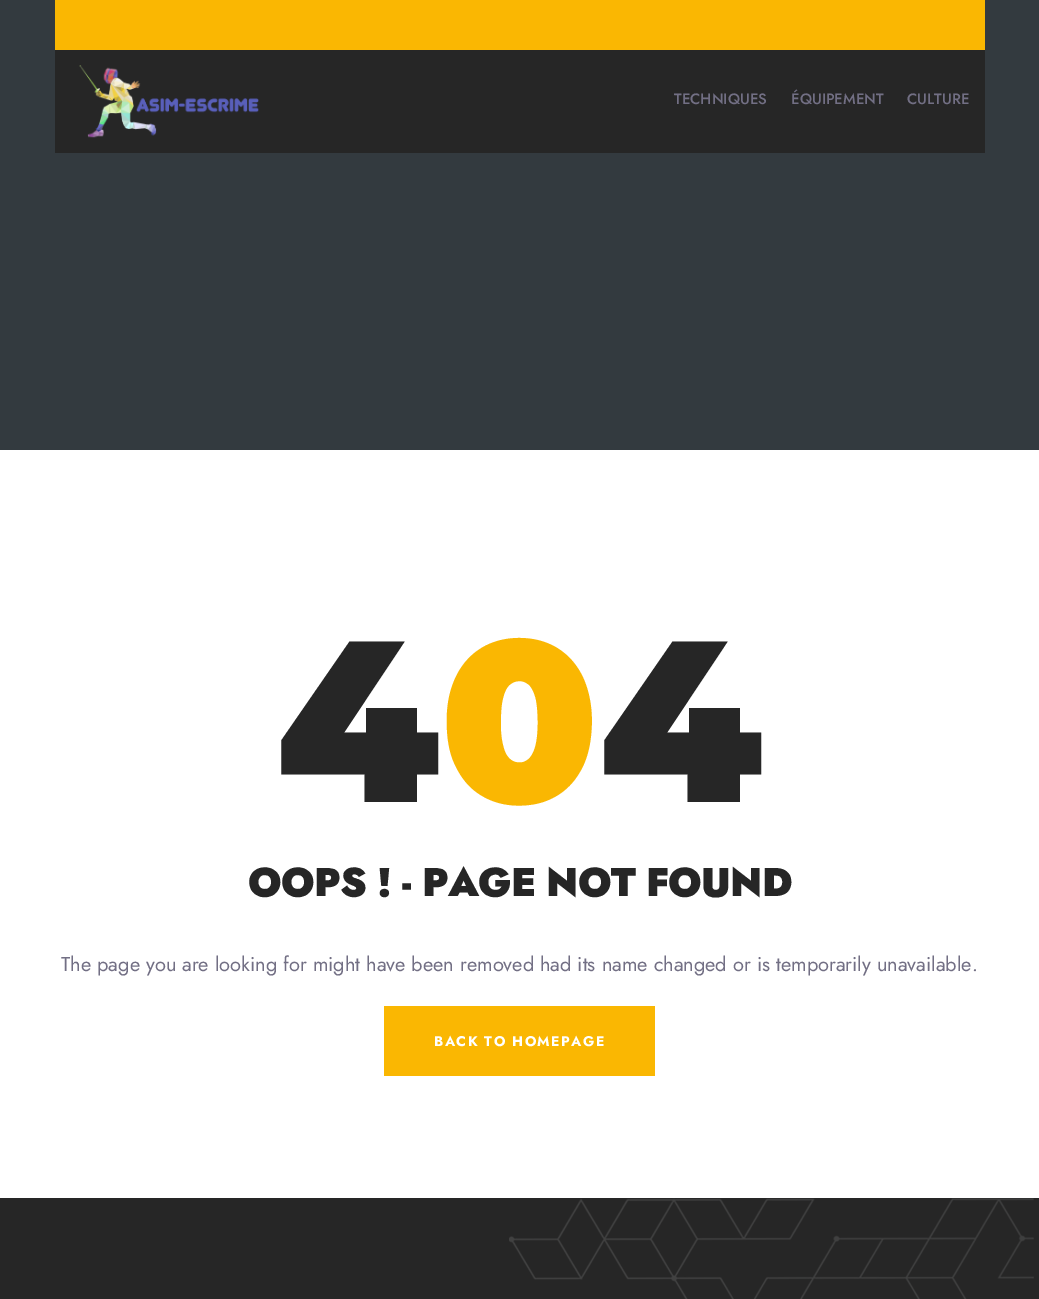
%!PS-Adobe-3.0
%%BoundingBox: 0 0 1039 1299
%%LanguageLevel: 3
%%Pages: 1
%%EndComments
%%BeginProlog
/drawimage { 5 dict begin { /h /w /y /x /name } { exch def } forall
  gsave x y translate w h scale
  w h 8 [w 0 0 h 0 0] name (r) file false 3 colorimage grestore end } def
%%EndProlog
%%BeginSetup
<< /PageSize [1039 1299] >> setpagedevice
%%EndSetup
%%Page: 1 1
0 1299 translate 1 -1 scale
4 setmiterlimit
1 setgray
0 0 1039 1299 rectfill
0.2 0.227 0.247 setrgbcolor
0 0 1039 450 rectfill
0.98 0.718 0.008 setrgbcolor
55 0 930 50 rectfill
0.149 setgray
55 50 930 103 rectfill
(images/1.raw) 79 65 180 73 drawimage
0.98 0.718 0.008 setrgbcolor
384 1006 271 70 rectfill
0.149 setgray
0 1198 1039 101 rectfill
(images/2.raw) 509 1198 525 101 drawimage
/Jost-Medium [15 0 0 -15 0 0] selectfont
0.447 0.435 0.518 setrgbcolor
674 104 moveto (TECHNIQUES) show
791 104 moveto (ÉQUIPEMENT) show
907 104 moveto (CULTURE) show
/Montserrat-Black [230 0 0 -230 0 0] selectfont
0.149 setgray
276 802 moveto (4) show
0.98 0.718 0.008 setrgbcolor
440 802 moveto (0) show
0.149 setgray
599 802 moveto (4) show
/Jost-Black [40 0 0 -40 0 0] selectfont
248 896 moveto -0.8 0 (OOPS ! - PAGE NOT FOUND) ashow
/Jost-Regular [20 0 0 -20 0 0] selectfont
0.447 0.435 0.518 setrgbcolor
61 971 moveto (The page you are looking for might have been removed had its name changed or is temporarily unavailable.) show
/Jost-Bold [14 0 0 -14 0 0] selectfont
1 setgray
434 1046 moveto 1.4 0 (BACK TO HOMEPAGE) ashow
showpage
%%EOF
